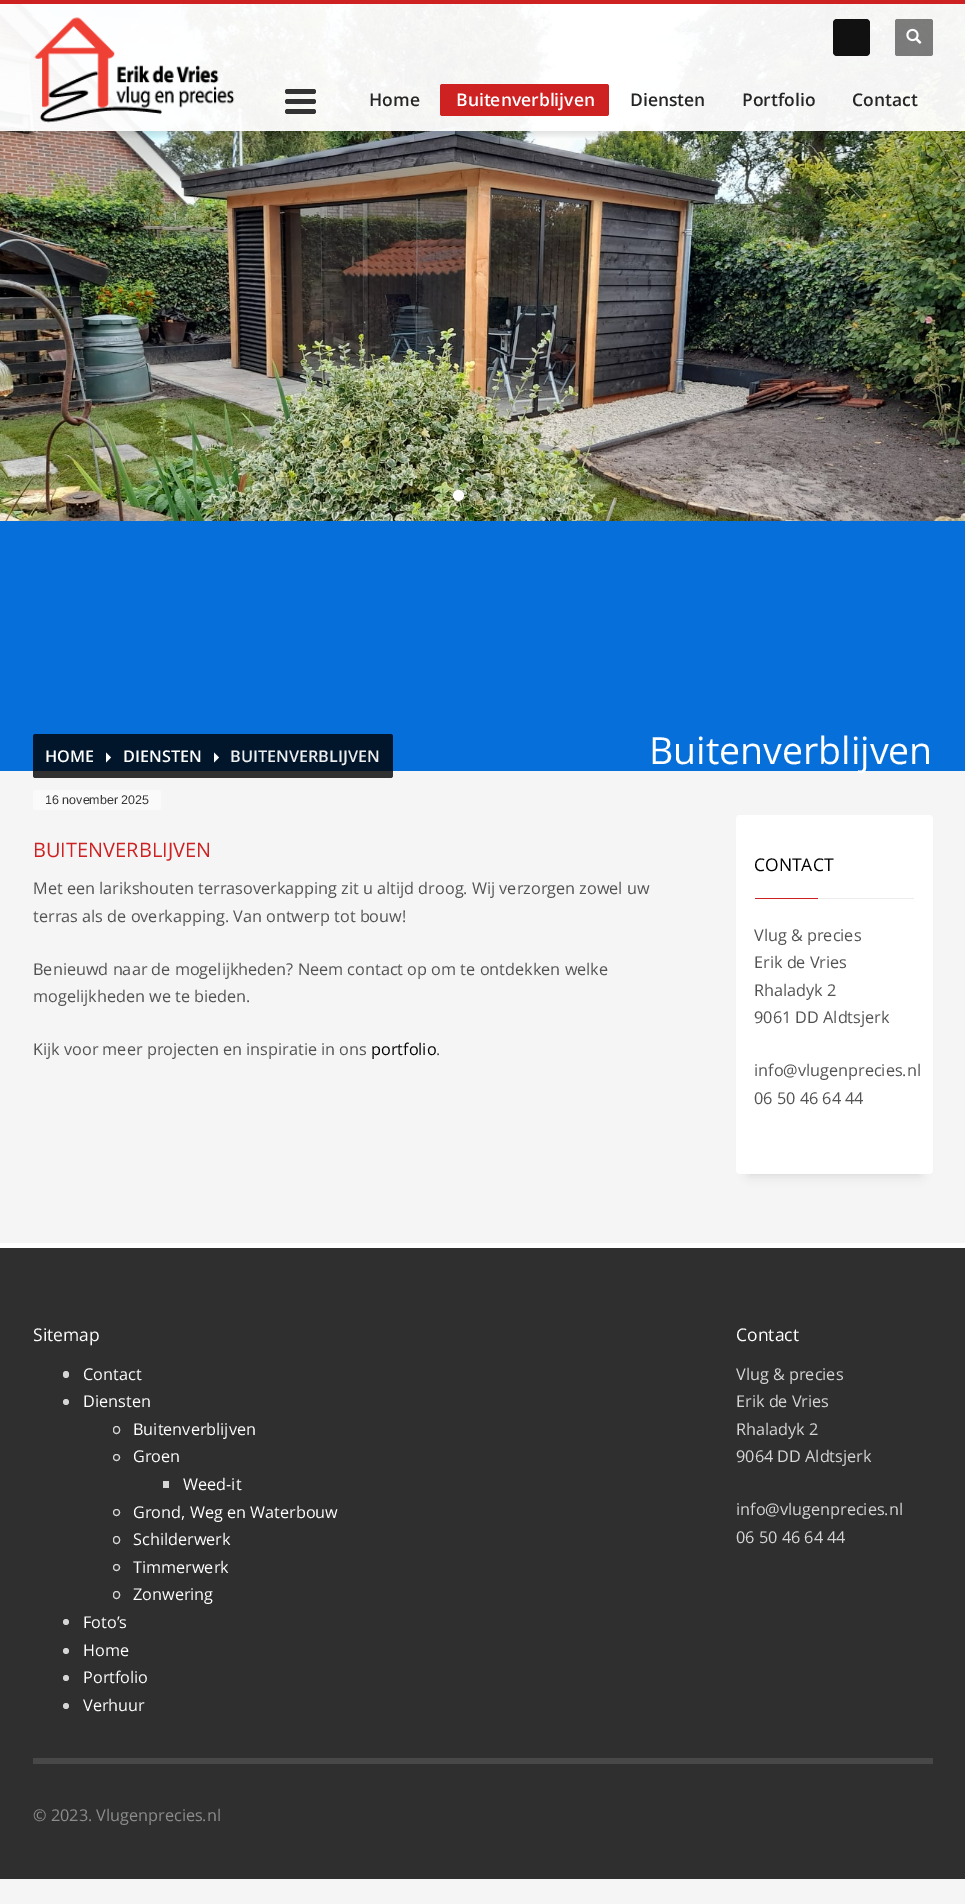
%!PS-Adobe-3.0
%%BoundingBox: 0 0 965 1904
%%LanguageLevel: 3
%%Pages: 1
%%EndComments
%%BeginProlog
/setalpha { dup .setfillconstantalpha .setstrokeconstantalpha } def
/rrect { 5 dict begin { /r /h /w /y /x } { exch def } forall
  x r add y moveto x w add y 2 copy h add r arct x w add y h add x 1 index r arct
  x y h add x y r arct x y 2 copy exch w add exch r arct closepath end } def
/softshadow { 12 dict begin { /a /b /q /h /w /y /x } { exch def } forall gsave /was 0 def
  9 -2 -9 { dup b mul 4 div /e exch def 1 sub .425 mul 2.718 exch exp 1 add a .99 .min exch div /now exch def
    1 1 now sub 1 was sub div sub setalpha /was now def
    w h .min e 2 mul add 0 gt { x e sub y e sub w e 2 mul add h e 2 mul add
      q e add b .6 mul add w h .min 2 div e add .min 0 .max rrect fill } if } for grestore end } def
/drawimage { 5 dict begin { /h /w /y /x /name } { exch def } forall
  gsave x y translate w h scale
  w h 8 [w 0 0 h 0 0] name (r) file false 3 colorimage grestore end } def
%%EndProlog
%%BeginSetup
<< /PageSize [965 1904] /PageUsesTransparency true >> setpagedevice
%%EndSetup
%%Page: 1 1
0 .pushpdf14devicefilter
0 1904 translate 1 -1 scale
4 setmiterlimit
0.961 setgray
0 0 965 1904 rectfill
(images/3.raw) 0 4 965 517 drawimage
gsave
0 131 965 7 rectclip
0 setgray
0 4 965 131 0 3 0.1 softshadow
grestore
0.95 setalpha
1 setgray
0 4 965 127 rectfill
1 setalpha
0.804 0.129 0.133 setrgbcolor
0 0 965 4 rectfill
(images/1.raw) 34 17 201 106 drawimage
0.067 setgray
833 19 37 37 4 rrect fill
0.5 setalpha
0 setgray
895 19 38 37 2.5 rrect fill
1 setalpha
(images/2.raw) 906 28 16 16 drawimage
0.2 setgray
285 109 31 5 2.5 rrect fill
285 99 31 5 2.5 rrect fill
285 89 31 5 2.5 rrect fill
0.804 0.129 0.133 setrgbcolor
440 84 169 32 2.5 rrect fill
1 setgray
newpath 458.5 495.5 5.5 0 360 arc closepath fill
0.4 setalpha
newpath 474.5 495.5 5.5 0 360 arc closepath fill
newpath 490.5 495.5 5.5 0 360 arc closepath fill
501 490 12 11 5.5 rrect fill
1 setalpha
0.024 0.435 0.851 setrgbcolor
0 521 965 250 rectfill
0.8 setalpha
0 setgray
33 734 360 44 2.5 rrect fill
1 setalpha
1 setgray
newpath 106 762.5 moveto 106 752.5 lineto 111 757.5 lineto closepath fill
newpath 214 762.5 moveto 214 752.5 lineto 219 757.5 lineto closepath fill
0.98 setgray
33 790 128 20 2.5 rrect fill
0 setgray
749 840 171 334 0 6 0.15 softshadow
1 setgray
736 815 197 359 4 rrect fill
0.804 0.129 0.133 setrgbcolor
755 898 63 1 rectfill
0.925 setgray
818 898 96 1 rectfill
0.184 setgray
0 1248 965 631 rectfill
1 setgray
0 1243 965 5 rectfill
0.835 setgray
63 1371 6 7 3 rrect fill
newpath 66 1402 3 0 360 arc closepath fill
113.5 1426.5 6 7 3 rrect stroke
newpath 116.5 1457.5 3 0 360 arc closepath stroke
163 1481 6 7 rectfill
newpath 116.5 1512.5 3 0 360 arc closepath stroke
113.5 1536.5 6 7 3 rrect stroke
newpath 116.5 1567.5 3 0 360 arc closepath stroke
113.5 1591.5 6 7 3 rrect stroke
newpath 66 1622 3 0 360 arc closepath fill
newpath 66 1651 3 0 360 arc closepath fill
newpath 66 1678 3 0 360 arc closepath fill
newpath 66 1706 3 0 360 arc closepath fill
0.282 setgray
33 1758 900 6 rectfill
/OpenSans-SemiBold [17.5 0 0 -17.5 0 0] selectfont
0.145 setgray
369 106 moveto (Home) show
1 setgray
456 106 moveto (Buitenverblijven) show
0.145 setgray
630 106 moveto (Diensten) show
742 106 moveto (Portfolio) show
852 106 moveto (Contact) show
/OpenSans-SemiBold [16.25 0 0 -16.25 0 0] selectfont
1 setgray
45 762 moveto (HOME) show
123 762 moveto (DIENSTEN) show
0.933 setgray
230 762 moveto (BUITENVERBLIJVEN) show
/LiberationSans-Regular [12.5 0 0 -12.5 0 0] selectfont
0.22 setgray
45 804 moveto (16 november 2025) show
/OpenSans-Regular [37.5 0 0 -37.5 0 0] selectfont
1 setgray
649 764 moveto (Buitenverblijven) show
/OpenSans-Regular [20 0 0 -20 0 0] selectfont
0.804 0.129 0.133 setrgbcolor
33 857 moveto (BUITENVERBLIJVEN) show
/OpenSans-Regular [16.25 0 0 -16.25 0 0] selectfont
0.325 setgray
33 894 moveto (Met een larikshouten terrasoverkapping zit u altijd droog. Wij verzorgen zowel uw) show
33 922 moveto (terras als de overkapping. Van ontwerp tot bouw!) show
33 975 moveto (Benieuwd naar de mogelijkheden? Neem contact op om te ontdekken welke) show
33 1002 moveto (mogelijkheden we te bieden.) show
33 1055 moveto (Kijk voor meer projecten en inspiratie in ons) show
0 setgray
371 1055 moveto (portfolio) show
0.325 setgray
436 1055 moveto (.) show
/OpenSans-Regular [17.5 0 0 -17.5 0 0] selectfont
0 setgray
754 871 moveto (CONTACT) show
/OpenSans-Regular [16.25 0 0 -16.25 0 0] selectfont
0.325 setgray
754 941 moveto (Vlug & precies) show
754 968 moveto (Erik de Vries) show
754 996 moveto (Rhaladyk 2) show
754 1023 moveto (9061 DD Aldtsjerk) show
754 1076 moveto (info@vlugenprecies.nl) show
754 1104 moveto (06 50 46 64 44) show
/OpenSans-Regular [17.5 0 0 -17.5 0 0] selectfont
1 setgray
33 1341 moveto (Sitemap) show
/OpenSans-Regular [16.25 0 0 -16.25 0 0] selectfont
83 1380 moveto (Contact) show
83 1407 moveto (Diensten) show
133 1435 moveto (Buitenverblijven) show
133 1462 moveto (Groen) show
183 1490 moveto (Weed-it) show
133 1518 moveto (Grond, Weg en Waterbouw) show
133 1545 moveto (Schilderwerk) show
133 1573 moveto (Timmerwerk) show
133 1600 moveto (Zonwering) show
83 1628 moveto (Foto’s) show
83 1656 moveto (Home) show
83 1683 moveto (Portfolio) show
83 1711 moveto (Verhuur) show
/OpenSans-Regular [17.5 0 0 -17.5 0 0] selectfont
736 1341 moveto (Contact) show
/OpenSans-Regular [16.25 0 0 -16.25 0 0] selectfont
0.835 setgray
736 1380 moveto (Vlug & precies) show
736 1407 moveto (Erik de Vries) show
736 1435 moveto (Rhaladyk 2) show
736 1462 moveto (9064 DD Aldtsjerk) show
736 1515 moveto (info@vlugenprecies.nl) show
736 1543 moveto (06 50 46 64 44) show
0.545 0.549 0.553 setrgbcolor
33 1821 moveto (© 2023. Vlugenprecies.nl) show
.poppdf14devicefilter showpage
%%EOF
